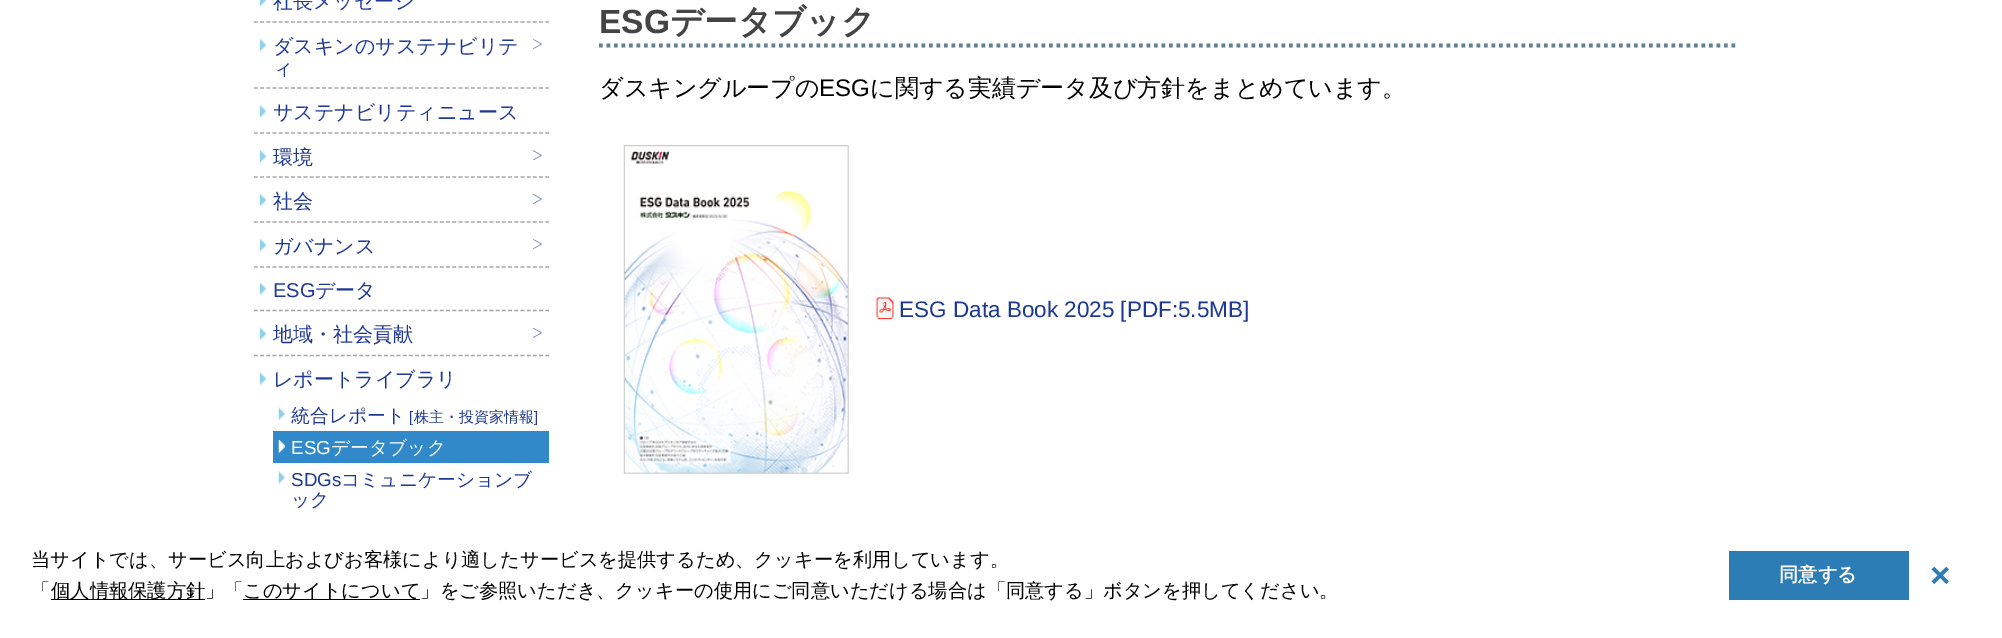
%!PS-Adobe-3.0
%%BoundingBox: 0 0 2002 638
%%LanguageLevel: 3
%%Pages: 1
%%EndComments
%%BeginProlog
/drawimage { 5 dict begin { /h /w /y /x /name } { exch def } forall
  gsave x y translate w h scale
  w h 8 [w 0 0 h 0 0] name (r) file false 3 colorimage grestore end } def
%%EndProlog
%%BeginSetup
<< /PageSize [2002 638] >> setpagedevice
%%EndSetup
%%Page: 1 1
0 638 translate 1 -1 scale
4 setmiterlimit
1 setgray
0 0 2002 638 rectfill
0.651 setgray
1.2 setlinewidth
[3.75 2.45] 0 setdash
newpath 254 22 moveto 549 22 lineto stroke
(images/1.raw) 260 0 7 7 drawimage
(images/2.raw) 533 39 10 11 drawimage
newpath 254 88 moveto 549 88 lineto stroke
(images/3.raw) 260 38 7 14 drawimage
newpath 254 133 moveto 549 133 lineto stroke
(images/4.raw) 260 105 7 13 drawimage
(images/5.raw) 533 150 10 10 drawimage
newpath 254 177 moveto 549 177 lineto stroke
(images/4.raw) 260 150 7 13 drawimage
(images/2.raw) 533 194 10 11 drawimage
newpath 254 222 moveto 549 222 lineto stroke
(images/3.raw) 260 193 7 14 drawimage
(images/2.raw) 533 239 10 11 drawimage
newpath 254 267 moveto 549 267 lineto stroke
(images/3.raw) 260 238 7 14 drawimage
newpath 254 310.5 moveto 549 310.5 lineto stroke
(images/6.raw) 260 282 7 13 drawimage
(images/7.raw) 533 328 10 10 drawimage
newpath 254 355.5 moveto 549 355.5 lineto stroke
(images/6.raw) 260 327 7 13 drawimage
(images/6.raw) 260 372 7 13 drawimage
(images/8.raw) 278 407 7 13 drawimage
0.196 0.537 0.792 setrgbcolor
273 431 276 32 rectfill
(images/9.raw) 278 440 7 13 drawimage
(images/10.raw) 278 471 7 13 drawimage
0.388 0.502 0.584 setrgbcolor
3.8 setlinewidth
[3.75 3.75] 0 setdash
newpath 599 45.5 moveto 1736 45.5 lineto stroke
(images/11.raw) 623 145 226 329 drawimage
(images/12.raw) 876 297 18 23 drawimage
0 setgray
51 599 154 1 rectfill
243 599 177 1 rectfill
0.173 0.486 0.71 setrgbcolor
1729 551 180 49 rectfill
/WenQuanYiZenHei-Medium [20 0 0 -20 0 0] selectfont
0.114 0.224 0.58 setrgbcolor
273 8 moveto (社長メッセージ) show
273 53 moveto (ダスキンのサステナビリテ) show
273 75 moveto (ィ) show
273 119 moveto (サステナビリティニュース) show
273 164 moveto (環境) show
273 208 moveto (社会) show
273 253 moveto (ガバナンス) show
/LiberationSans-Regular [20 0 0 -20 0 0] selectfont
273 297 moveto (ESG) show
/WenQuanYiZenHei-Medium [20 0 0 -20 0 0] selectfont
315 297 moveto (データ) show
273 341 moveto (地域・社会貢献) show
273 386 moveto (レポートライブラリ) show
/WenQuanYiZenHei-Medium [18.75 0 0 -18.75 0 0] selectfont
291 422 moveto (統合レポート) show
/LiberationSans-Regular [15 0 0 -15 0 0] selectfont
409 422 moveto ([) show
/WenQuanYiZenHei-Medium [15 0 0 -15 0 0] selectfont
414 422 moveto (株主・投資家情報) show
/LiberationSans-Regular [15 0 0 -15 0 0] selectfont
534 422 moveto (]) show
/LiberationSans-Regular [18.75 0 0 -18.75 0 0] selectfont
1 setgray
291 454 moveto (ESG) show
/WenQuanYiZenHei-Medium [18.75 0 0 -18.75 0 0] selectfont
331 454 moveto (データブック) show
/LiberationSans-Regular [18.75 0 0 -18.75 0 0] selectfont
0.114 0.224 0.58 setrgbcolor
291 486 moveto (SDGs) show
/WenQuanYiZenHei-Medium [18.75 0 0 -18.75 0 0] selectfont
341 486 moveto (コミュニケーションブ) show
291 506 moveto (ック) show
/LiberationSans-Bold [33.5 0 0 -33.5 0 0] selectfont
0.267 setgray
599 33 moveto (ESG) show
/WenQuanYiZenHei-Bold [33.5 0 0 -33.5 0 0] selectfont
670 33 moveto (データブック) show
/WenQuanYiZenHei-Medium [24 0 0 -24 0 0] selectfont
0 setgray
599 96 moveto (ダスキングループの) show
/LiberationSans-Regular [24 0 0 -24 0 0] selectfont
819 96 moveto (ESG) show
/WenQuanYiZenHei-Medium [24 0 0 -24 0 0] selectfont
870 96 moveto (に関する実績データ及び方針をまとめています。) show
/LiberationSans-Regular [22.5 0 0 -22.5 0 0] selectfont
0.114 0.224 0.58 setrgbcolor
899 317 moveto (ESG Data Book 2025 [PDF:5.5MB]) show
/WenQuanYiZenHei-Medium [19.25 0 0 -19.25 0 0] selectfont
0 setgray
31 566 moveto (当サイトでは、サービス向上およびお客様により適したサービスを提供するため、クッキーを利用しています。) show
31 597 moveto (「) show
51 597 moveto (個人情報保護方針」「) show
243 597 moveto (このサイトについて」をご参照いただき、クッキーの使用にご同意いただける場合は「同意する」ボタンを押してください。) show
/WenQuanYiZenHei-Bold [19.25 0 0 -19.25 0 0] selectfont
1 setgray
1779 581 moveto (同意する) show
/LiberationSans-Bold [35 0 0 -35 0 0] selectfont
0.173 0.486 0.71 setrgbcolor
1930 587 moveto (×) show
showpage
%%EOF
